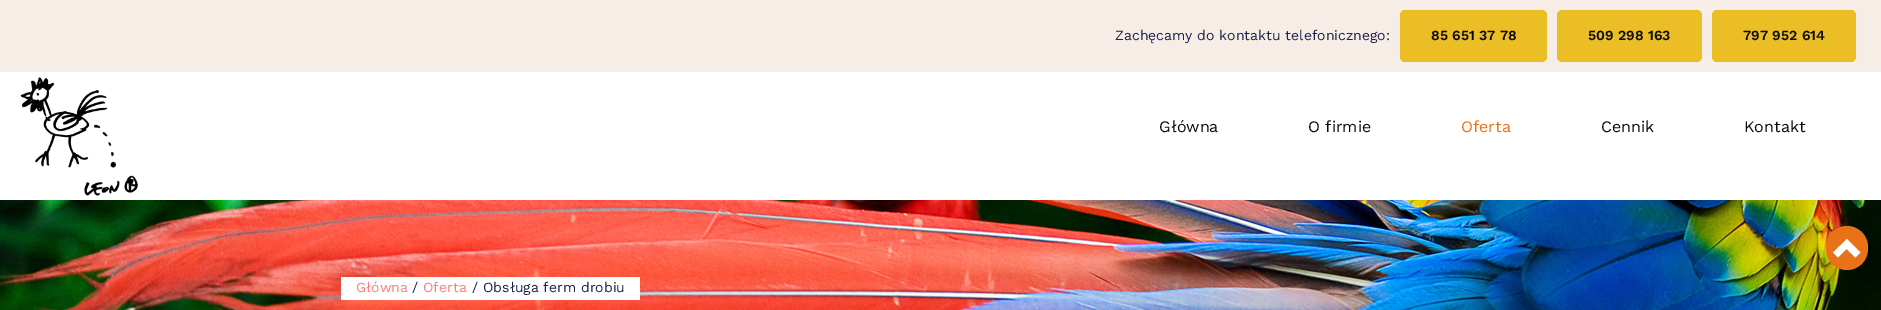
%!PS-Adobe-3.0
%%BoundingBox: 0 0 1881 310
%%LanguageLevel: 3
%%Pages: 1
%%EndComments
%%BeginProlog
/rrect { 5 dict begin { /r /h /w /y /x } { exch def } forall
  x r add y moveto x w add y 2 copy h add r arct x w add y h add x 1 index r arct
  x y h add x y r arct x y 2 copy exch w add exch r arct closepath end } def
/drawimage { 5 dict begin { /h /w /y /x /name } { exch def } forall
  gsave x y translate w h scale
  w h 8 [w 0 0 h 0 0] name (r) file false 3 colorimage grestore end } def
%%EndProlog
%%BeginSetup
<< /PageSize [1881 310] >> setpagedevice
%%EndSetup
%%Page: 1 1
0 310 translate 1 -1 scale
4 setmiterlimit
1 setgray
0 0 1881 310 rectfill
0.961 0.929 0.902 setrgbcolor
0 0 1881 72 rectfill
0.925 0.745 0.149 setrgbcolor
1400 10 147 52 5 rrect fill
1557 10 145 52 5 rrect fill
1712 10 144 52 5 rrect fill
(images/1.raw) 20 77 118 119 drawimage
(images/2.raw) 0 200 1881 110 drawimage
1 setgray
341 277 299 23 rectfill
0.914 0.447 0.098 setrgbcolor
1826 226 42 44 21 rrect fill
1 setgray
newpath 1860.5 252.5 moveto 1855.5 257.5 lineto 1846.5 249 lineto 1838 257.5 lineto 1833 252.5 lineto 1847 239 lineto closepath fill
/WorkSans-Regular [14 0 0 -14 0 0] selectfont
0.11 0.129 0.306 setrgbcolor
1115 40 moveto (Zachęcamy do kontaktu telefonicznego:) show
/WorkSans-SemiBold [14 0 0 -14 0 0] selectfont
0.051 setgray
1431 40 moveto (85 651 37 78) show
1588 40 moveto (509 298 163) show
1743 40 moveto (797 952 614) show
/WorkSans-Regular [16 0 0 -16 0 0] selectfont
1159 132 moveto (Główna) show
1308 132 moveto (O firmie) show
0.914 0.447 0.098 setrgbcolor
1461 132 moveto (Oferta) show
0.051 setgray
1601 132 moveto (Cennik) show
1744 132 moveto (Kontakt) show
/WorkSans-Regular [14 0 0 -14 0 0] selectfont
0.988 0.498 0.498 setrgbcolor
356 292 moveto (Główna) show
0.11 0.129 0.306 setrgbcolor
412 292 moveto (/) show
0.988 0.498 0.498 setrgbcolor
423 292 moveto (Oferta) show
0.11 0.129 0.306 setrgbcolor
472 292 moveto (/ Obsługa ferm drobiu) show
showpage
%%EOF
